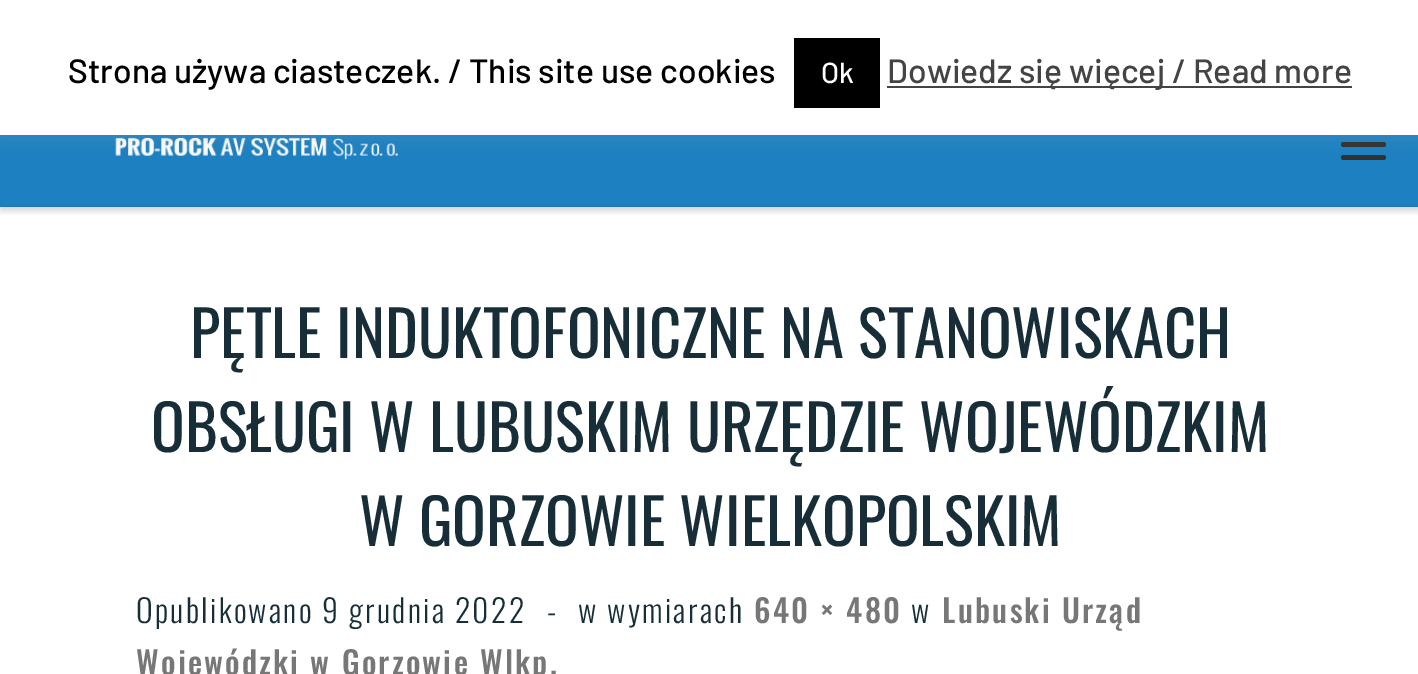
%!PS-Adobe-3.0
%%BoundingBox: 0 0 1418 674
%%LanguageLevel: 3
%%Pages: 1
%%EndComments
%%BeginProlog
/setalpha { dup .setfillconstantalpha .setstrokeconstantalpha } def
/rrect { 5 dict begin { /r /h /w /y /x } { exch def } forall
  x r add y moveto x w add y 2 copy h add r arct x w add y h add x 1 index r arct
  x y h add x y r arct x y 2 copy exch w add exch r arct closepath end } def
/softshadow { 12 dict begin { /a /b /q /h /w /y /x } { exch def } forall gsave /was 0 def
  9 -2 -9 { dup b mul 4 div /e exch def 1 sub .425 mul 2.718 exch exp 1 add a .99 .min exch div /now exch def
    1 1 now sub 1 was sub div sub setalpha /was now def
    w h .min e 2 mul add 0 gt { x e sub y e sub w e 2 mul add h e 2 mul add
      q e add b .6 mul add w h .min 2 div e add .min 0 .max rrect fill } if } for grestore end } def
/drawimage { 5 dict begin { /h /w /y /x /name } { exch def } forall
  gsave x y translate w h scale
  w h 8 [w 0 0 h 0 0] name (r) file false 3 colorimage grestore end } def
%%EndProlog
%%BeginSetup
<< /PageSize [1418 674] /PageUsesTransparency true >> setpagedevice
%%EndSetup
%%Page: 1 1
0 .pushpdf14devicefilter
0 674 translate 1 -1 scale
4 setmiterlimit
1 setgray
0 0 1418 674 rectfill
0.4 setgray
0 5 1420 207 0 2 0.08 softshadow
0.114 0.502 0.757 setrgbcolor
0 135 1418 70 rectfill
gsave
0 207 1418 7 rectclip
0 setgray
0 79 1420 128 0 5.5 0.2 softshadow
grestore
(images/1.raw) 115 137 283 23 drawimage
0.192 setgray
1341 142 45 5 2.5 rrect fill
1341 155 45 5 2.5 rrect fill
0.675 0.671 0.671 setrgbcolor
0 -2 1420 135 0 11 0.3 softshadow
1 setgray
0 0 1418 135 rectfill
0 setgray
794 38 86 70 rectfill
0.267 setgray
887 86 465 2 rectfill
0.122 0.478 0.714 setrgbcolor
0 205 1418 2 rectfill
/Barlow-Medium [33.75 0 0 -33.75 0 0] selectfont
0 setgray
68 83 moveto (Strona używa ciasteczek. / This site use cookies) show
/Barlow-Medium [29 0 0 -29 0 0] selectfont
1 setgray
821 83 moveto (Ok) show
/Barlow-Medium [33.75 0 0 -33.75 0 0] selectfont
0.267 setgray
887 83 moveto (Dowiedz się więcej / Read more) show
/Oswald-Regular [62.6 0 0 -62.6 0 0] selectfont
0.09 0.18 0.22 setrgbcolor
190 358 moveto (PĘTLE INDUKTOFONICZNE NA STANOWISKACH) show
151 452 moveto (OBSŁUGI W LUBUSKIM URZĘDZIE WOJEWÓDZKIM) show
359 546 moveto (W GORZOWIE WIELKOPOLSKIM) show
/Oswald-Light [31.75 0 0 -31.75 0 0] selectfont
136 623 moveto 2.25 0 (Opublikowano 9 grudnia 2022) ashow
547 623 moveto 2.25 0 (-) ashow
578 623 moveto 2.25 0 (w wymiarach) ashow
/Oswald-Medium [31.75 0 0 -31.75 0 0] selectfont
0.467 setgray
754 623 moveto 2.25 0 (640 × 480) ashow
/Oswald-Light [31.75 0 0 -31.75 0 0] selectfont
0.09 0.18 0.22 setrgbcolor
911 623 moveto 2.25 0 (w) ashow
/Oswald-Medium [31.75 0 0 -31.75 0 0] selectfont
0.467 setgray
942 623 moveto 2.25 0 (Lubuski Urząd) ashow
136 675 moveto 2.25 0 (Wojewódzki w Gorzowie Wlkp.) ashow
.poppdf14devicefilter showpage
%%EOF
